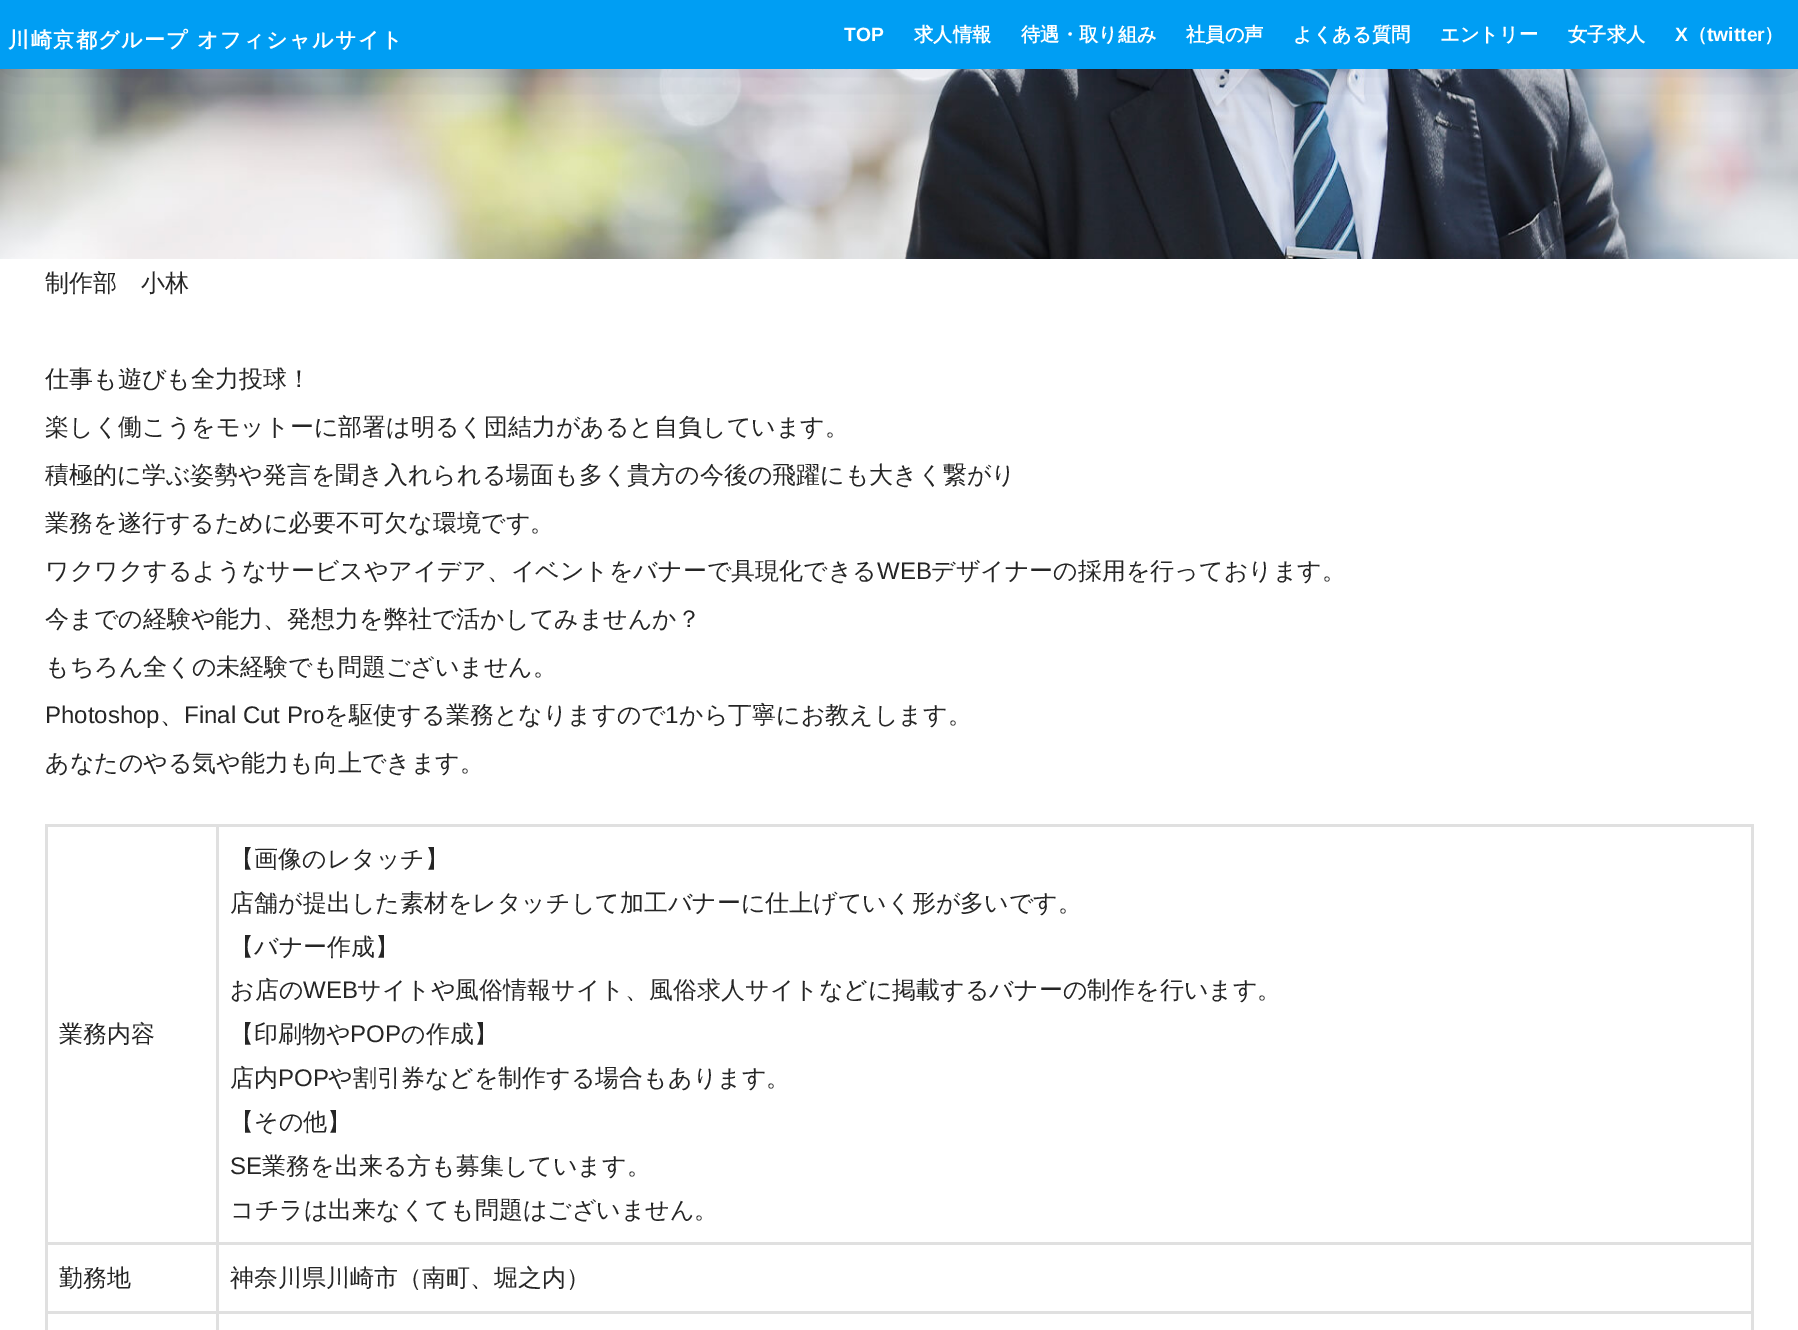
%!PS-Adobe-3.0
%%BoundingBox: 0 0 1798 1330
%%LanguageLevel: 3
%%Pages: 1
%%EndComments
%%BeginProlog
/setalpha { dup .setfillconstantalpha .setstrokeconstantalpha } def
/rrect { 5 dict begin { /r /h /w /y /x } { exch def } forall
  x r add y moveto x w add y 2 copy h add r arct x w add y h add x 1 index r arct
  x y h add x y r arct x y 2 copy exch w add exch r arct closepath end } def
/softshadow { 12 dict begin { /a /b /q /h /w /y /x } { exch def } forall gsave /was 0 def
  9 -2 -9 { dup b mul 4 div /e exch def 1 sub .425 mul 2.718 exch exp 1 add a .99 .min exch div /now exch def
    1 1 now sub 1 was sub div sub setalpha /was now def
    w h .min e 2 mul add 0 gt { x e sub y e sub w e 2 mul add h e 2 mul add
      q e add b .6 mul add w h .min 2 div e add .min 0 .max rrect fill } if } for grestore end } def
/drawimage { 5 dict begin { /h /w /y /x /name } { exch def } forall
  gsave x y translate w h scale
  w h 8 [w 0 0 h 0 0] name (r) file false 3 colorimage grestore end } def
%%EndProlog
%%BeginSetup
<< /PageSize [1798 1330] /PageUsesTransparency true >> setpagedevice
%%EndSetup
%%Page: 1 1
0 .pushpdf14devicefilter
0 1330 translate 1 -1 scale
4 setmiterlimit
1 setgray
0 0 1798 1330 rectfill
(images/1.raw) 0 69 1798 190 drawimage
0 0.047 0.259 setrgbcolor
0 0 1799 69 0 34 0.15 softshadow
0 0.62 0.953 setrgbcolor
0 0 1798 69 rectfill
0.878 setgray
45 824 1709 3 rectfill
1751 824 3 506 rectfill
45 824 3 506 rectfill
45 1242 1709 3 rectfill
45 1311 1709 3 rectfill
216 824 3 506 rectfill
/WenQuanYiZenHei-Bold [21 0 0 -21 0 0] selectfont
1 setgray
8 47 moveto 1.5 0 (川崎京都グループ オフィシャルサイト) ashow
/LiberationSans-Bold [19.25 0 0 -19.25 0 0] selectfont
844 41 moveto (TOP) show
/WenQuanYiZenHei-Bold [19.25 0 0 -19.25 0 0] selectfont
914 41 moveto (求人情報) show
1021 41 moveto (待遇・取り組み) show
1186 41 moveto (社員の声) show
1293 41 moveto (よくある質問) show
1440 41 moveto (エントリー) show
1568 41 moveto (女子求人) show
/LiberationSans-Bold [19.25 0 0 -19.25 0 0] selectfont
1675 41 moveto (X) show
/WenQuanYiZenHei-Bold [19.25 0 0 -19.25 0 0] selectfont
1688 41 moveto (（) show
/LiberationSans-Bold [19.25 0 0 -19.25 0 0] selectfont
1707 41 moveto (twitter) show
/WenQuanYiZenHei-Bold [19.25 0 0 -19.25 0 0] selectfont
1764 41 moveto (）) show
/WenQuanYiZenHei-Medium [24 0 0 -24 0 0] selectfont
0.145 setgray
45 291 moveto (制作部　小林) show
45 387 moveto (仕事も遊びも全力投球！) show
45 435 moveto (楽しく働こうをモットーに部署は明るく団結力があると自負しています。) show
45 483 moveto (積極的に学ぶ姿勢や発言を聞き入れられる場面も多く貴方の今後の飛躍にも大きく繋がり) show
45 531 moveto (業務を遂行するために必要不可欠な環境です。) show
45 579 moveto (ワクワクするようなサービスやアイデア、イベントをバナーで具現化できる) show
/LiberationSans-Regular [24 0 0 -24 0 0] selectfont
877 579 moveto (WEB) show
/WenQuanYiZenHei-Medium [24 0 0 -24 0 0] selectfont
931 579 moveto (デザイナーの採用を行っております。) show
45 627 moveto (今までの経験や能力、発想力を弊社で活かしてみませんか？) show
45 675 moveto (もちろん全くの未経験でも問題ございません。) show
/LiberationSans-Regular [24 0 0 -24 0 0] selectfont
45 723 moveto (Photoshop) show
184 723 moveto (Final Cut Pro) show
/WenQuanYiZenHei-Medium [24 0 0 -24 0 0] selectfont
324 723 moveto (を駆使する業務となりますので) show
/LiberationSans-Regular [24 0 0 -24 0 0] selectfont
665 723 moveto (1) show
/WenQuanYiZenHei-Medium [24 0 0 -24 0 0] selectfont
679 723 moveto (から丁寧にお教えします。) show
160 723 moveto (、) show
45 771 moveto (あなたのやる気や能力も向上できます。) show
59 1042 moveto (業務内容) show
230 867 moveto (【画像のレタッチ】) show
230 911 moveto (店舗が提出した素材をレタッチして加工バナーに仕上げていく形が多いです。) show
230 955 moveto (【バナー作成】) show
230 998 moveto (お店の) show
/LiberationSans-Regular [24 0 0 -24 0 0] selectfont
303 998 moveto (WEB) show
/WenQuanYiZenHei-Medium [24 0 0 -24 0 0] selectfont
357 998 moveto (サイトや風俗情報サイト、風俗求人サイトなどに掲載するバナーの制作を行います。) show
230 1042 moveto (【印刷物や) show
/LiberationSans-Regular [24 0 0 -24 0 0] selectfont
350 1042 moveto (POP) show
/WenQuanYiZenHei-Medium [24 0 0 -24 0 0] selectfont
401 1042 moveto (の作成】) show
230 1086 moveto (店内) show
/LiberationSans-Regular [24 0 0 -24 0 0] selectfont
278 1086 moveto (POP) show
/WenQuanYiZenHei-Medium [24 0 0 -24 0 0] selectfont
328 1086 moveto (や割引券などを制作する場合もあります。) show
230 1130 moveto (【その他】) show
/LiberationSans-Regular [24 0 0 -24 0 0] selectfont
230 1174 moveto (SE) show
/WenQuanYiZenHei-Medium [24 0 0 -24 0 0] selectfont
262 1174 moveto (業務を出来る方も募集しています。) show
230 1218 moveto (コチラは出来なくても問題はございません。) show
59 1286 moveto (勤務地) show
230 1286 moveto (神奈川県川崎市（南町、堀之内）) show
.poppdf14devicefilter showpage
%%EOF
